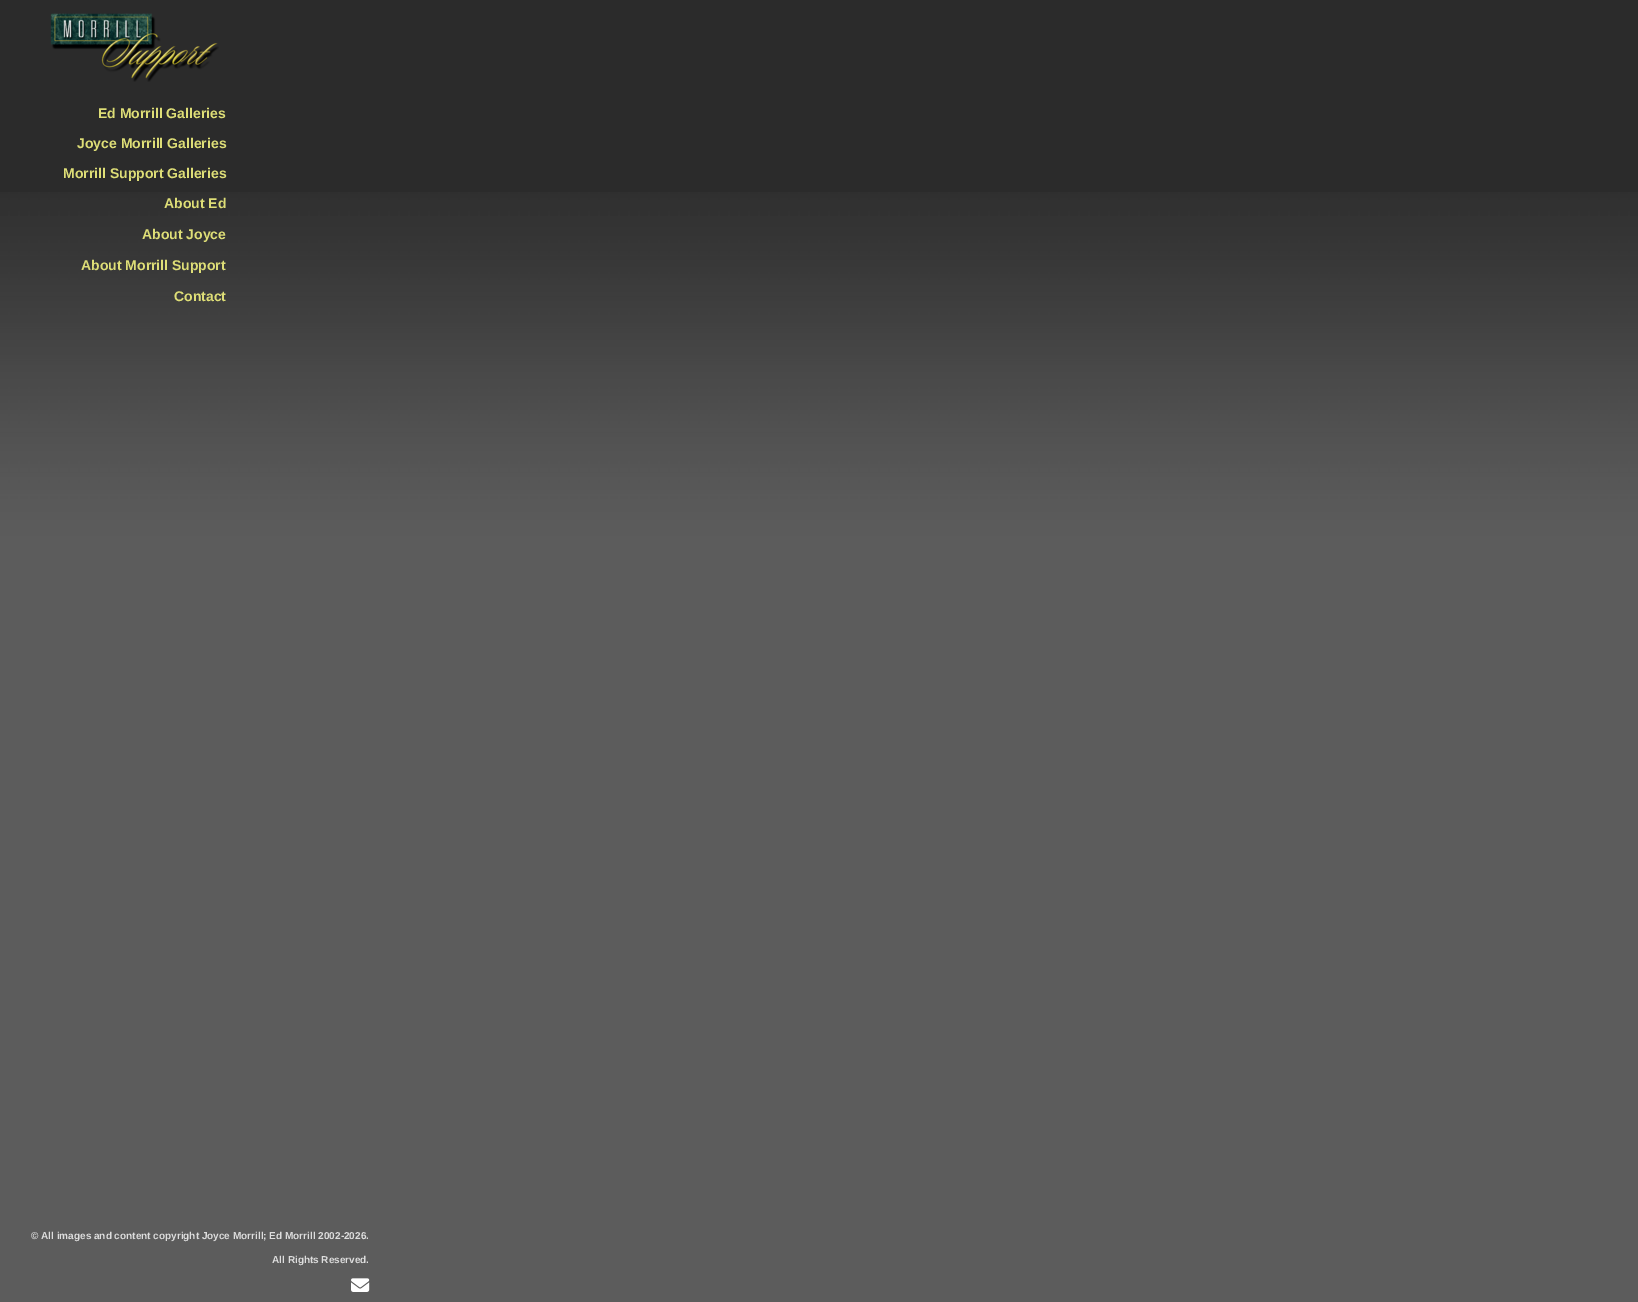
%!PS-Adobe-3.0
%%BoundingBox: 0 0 1638 1302
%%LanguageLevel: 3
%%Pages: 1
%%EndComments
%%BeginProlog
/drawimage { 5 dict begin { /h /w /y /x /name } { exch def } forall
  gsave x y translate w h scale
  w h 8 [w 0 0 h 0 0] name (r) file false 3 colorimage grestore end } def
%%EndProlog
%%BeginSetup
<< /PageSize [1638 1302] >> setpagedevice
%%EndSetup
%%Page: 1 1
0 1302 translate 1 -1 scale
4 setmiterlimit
0.169 setgray
0 0 1638 1302 rectfill
(images/1.raw) 0 192 1638 1110 drawimage
(images/2.raw) 50 13 169 69 drawimage
(images/3.raw) 351 1278 19 14 drawimage
/LiberationSans-Bold [14 0 0 -14 0 0] selectfont
0.871 0.871 0.467 setrgbcolor
98 118 moveto (Ed Morrill Galleries) show
77 148 moveto (Joyce Morrill Galleries) show
63 178 moveto (Morrill Support Galleries) show
164 208 moveto (About Ed) show
142 239 moveto (About Joyce) show
81 270 moveto (About Morrill Support) show
174 301 moveto (Contact) show
/LiberationSans-Bold [10 0 0 -10 0 0] selectfont
0.867 setgray
31 1239 moveto (© All images and content copyright Joyce Morrill; Ed Morrill 2002-2026.) show
272 1263 moveto (All Rights Reserved.) show
showpage
%%EOF
